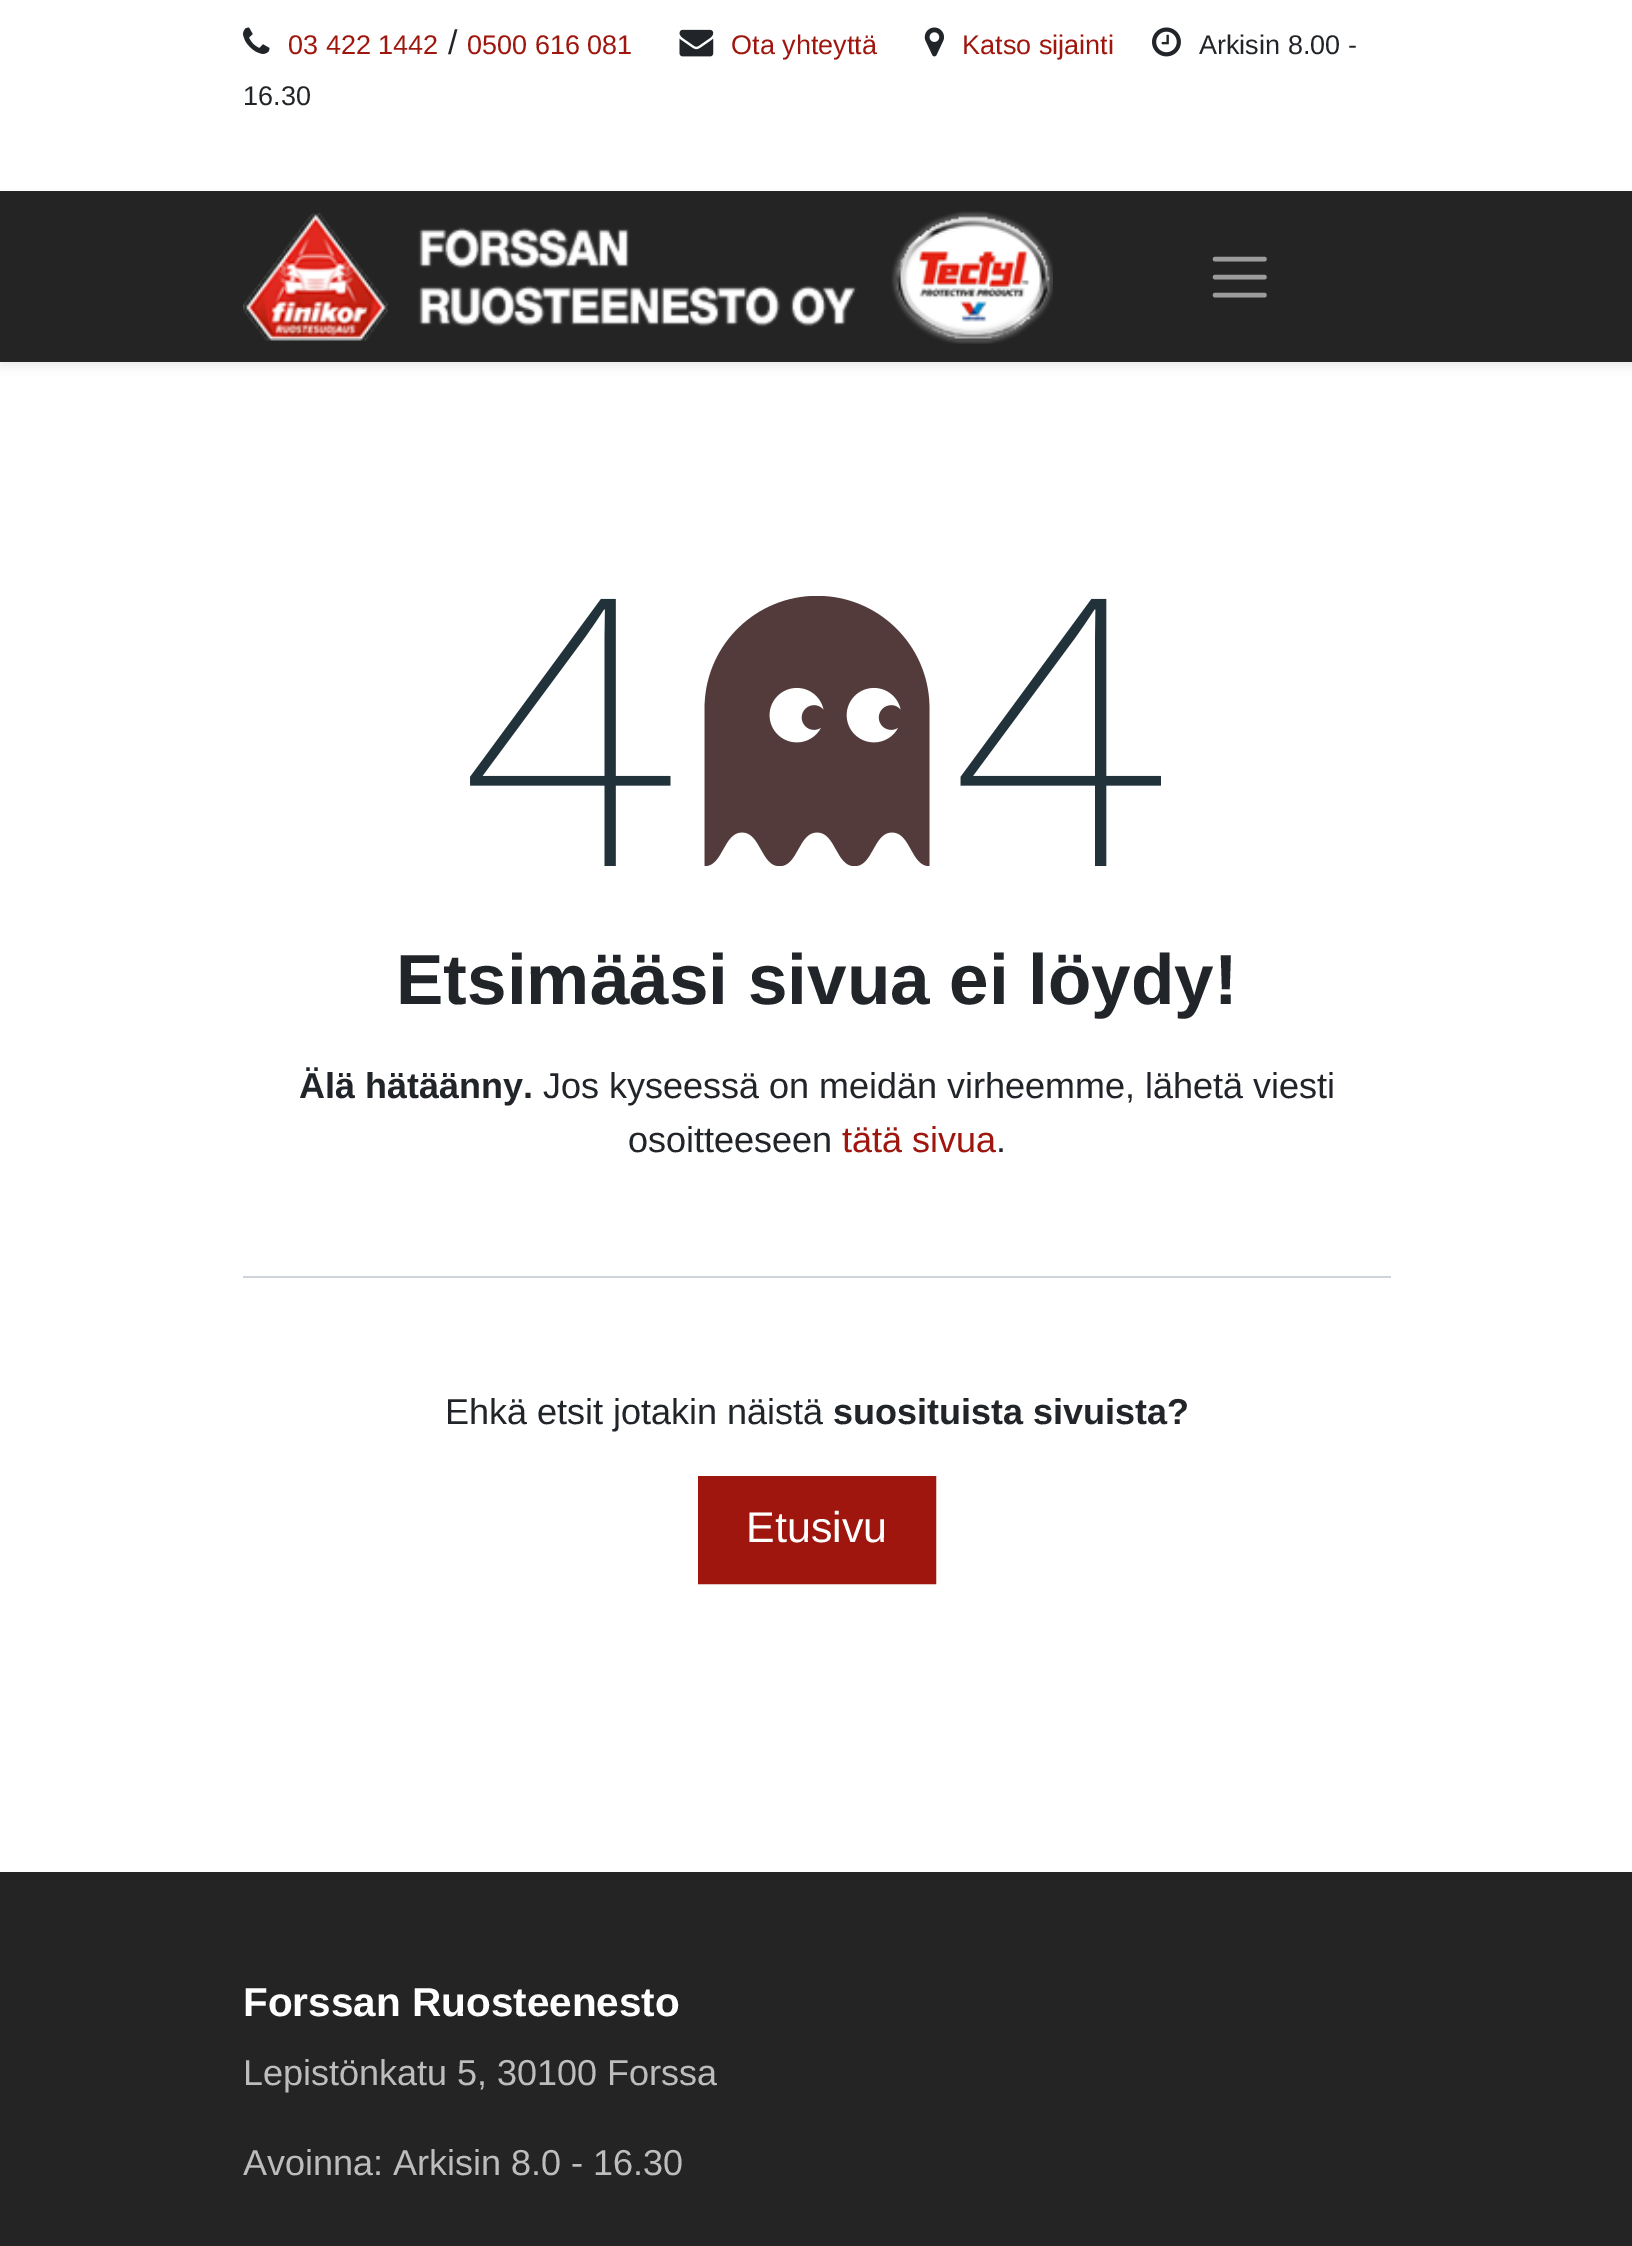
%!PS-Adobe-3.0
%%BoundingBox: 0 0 1632 2246
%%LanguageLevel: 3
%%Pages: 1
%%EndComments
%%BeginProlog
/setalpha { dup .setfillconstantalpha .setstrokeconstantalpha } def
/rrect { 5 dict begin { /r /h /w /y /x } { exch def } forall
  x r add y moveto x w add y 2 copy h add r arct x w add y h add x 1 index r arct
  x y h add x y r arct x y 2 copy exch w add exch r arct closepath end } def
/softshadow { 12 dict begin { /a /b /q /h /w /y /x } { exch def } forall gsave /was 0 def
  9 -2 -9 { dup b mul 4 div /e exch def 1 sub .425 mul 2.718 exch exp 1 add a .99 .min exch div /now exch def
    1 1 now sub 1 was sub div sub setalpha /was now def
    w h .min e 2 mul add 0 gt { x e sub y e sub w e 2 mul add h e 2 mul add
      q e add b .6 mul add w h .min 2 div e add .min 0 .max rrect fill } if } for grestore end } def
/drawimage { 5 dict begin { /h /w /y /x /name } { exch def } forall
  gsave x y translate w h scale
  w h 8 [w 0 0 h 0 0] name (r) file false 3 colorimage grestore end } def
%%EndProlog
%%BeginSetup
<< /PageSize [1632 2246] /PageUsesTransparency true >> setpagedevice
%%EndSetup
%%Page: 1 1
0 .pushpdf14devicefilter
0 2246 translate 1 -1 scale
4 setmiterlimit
1 setgray
0 0 1632 2246 rectfill
(images/1.raw) 243 27 27 27 drawimage
(images/2.raw) 679 29 35 28 drawimage
(images/3.raw) 924 27 20 30 drawimage
(images/4.raw) 1152 27 29 30 drawimage
0 setgray
0 196 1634 171 0 4.5 0.07 softshadow
0.141 setgray
0 191 1632 171 rectfill
(images/5.raw) 243 211 810 133 drawimage
0.612 setgray
4.5 setlinewidth
1 setlinecap
newpath 1215 259 moveto 1264.5 259 lineto 1215 277 moveto 1264.5 277 lineto 1215 295 moveto 1264.5 295 lineto stroke
(images/6.raw) 470 596 691 270 drawimage
0.808 0.831 0.855 setrgbcolor
243 1276 1148 2 rectfill
0.62 0.086 0.051 setrgbcolor
newpath 700.5 1478.5 moveto 933.5 1478.5 lineto 933.5 1581.5 lineto 700.5 1581.5 lineto closepath gsave fill grestore
5 setlinewidth
0 setlinecap
stroke
0.141 setgray
0 1872 1632 374 rectfill
/LiberationSans-Regular [27 0 0 -27 0 0] selectfont
0.62 0.086 0.051 setrgbcolor
288 54 moveto (03 422 1442) show
/LiberationSans-Regular [34 0 0 -34 0 0] selectfont
0.129 0.145 0.161 setrgbcolor
448 54 moveto (/) show
/LiberationSans-Regular [27 0 0 -27 0 0] selectfont
0.62 0.086 0.051 setrgbcolor
467 54 moveto (0500 616 081) show
731 54 moveto (Ota yhteyttä) show
962 54 moveto (Katso sijainti) show
0.129 0.145 0.161 setrgbcolor
1199 54 moveto (Arkisin 8.00 -) show
243 105 moveto (16.30) show
/LiberationSans-Bold [71.1 0 0 -71.1 0 0] selectfont
396 1004 moveto (Etsimääsi sivua ei löydy!) show
/LiberationSans-Bold [36 0 0 -36 0 0] selectfont
299 1098 moveto (Älä hätäänny.) show
/LiberationSans-Regular [36 0 0 -36 0 0] selectfont
543 1098 moveto (Jos kyseessä on meidän virheemme, lähetä viesti) show
628 1152 moveto (osoitteeseen) show
0.62 0.086 0.051 setrgbcolor
842 1152 moveto (tätä sivua) show
0.129 0.145 0.161 setrgbcolor
996 1152 moveto (.) show
445 1424 moveto (Ehkä etsit jotakin näistä) show
/LiberationSans-Bold [36 0 0 -36 0 0] selectfont
833 1424 moveto (suosituista sivuista?) show
/LiberationSans-Regular [43 0 0 -43 0 0] selectfont
1 setgray
746 1542 moveto (Etusivu) show
/LiberationSans-Bold [40.5 0 0 -40.5 0 0] selectfont
243 2016 moveto (Forssan Ruosteenesto) show
/LiberationSans-Regular [36 0 0 -36 0 0] selectfont
0.741 setgray
243 2085 moveto (Lepistönkatu 5, 30100 Forssa) show
243 2175 moveto (Avoinna: Arkisin 8.0 - 16.30) show
.poppdf14devicefilter showpage
%%EOF
